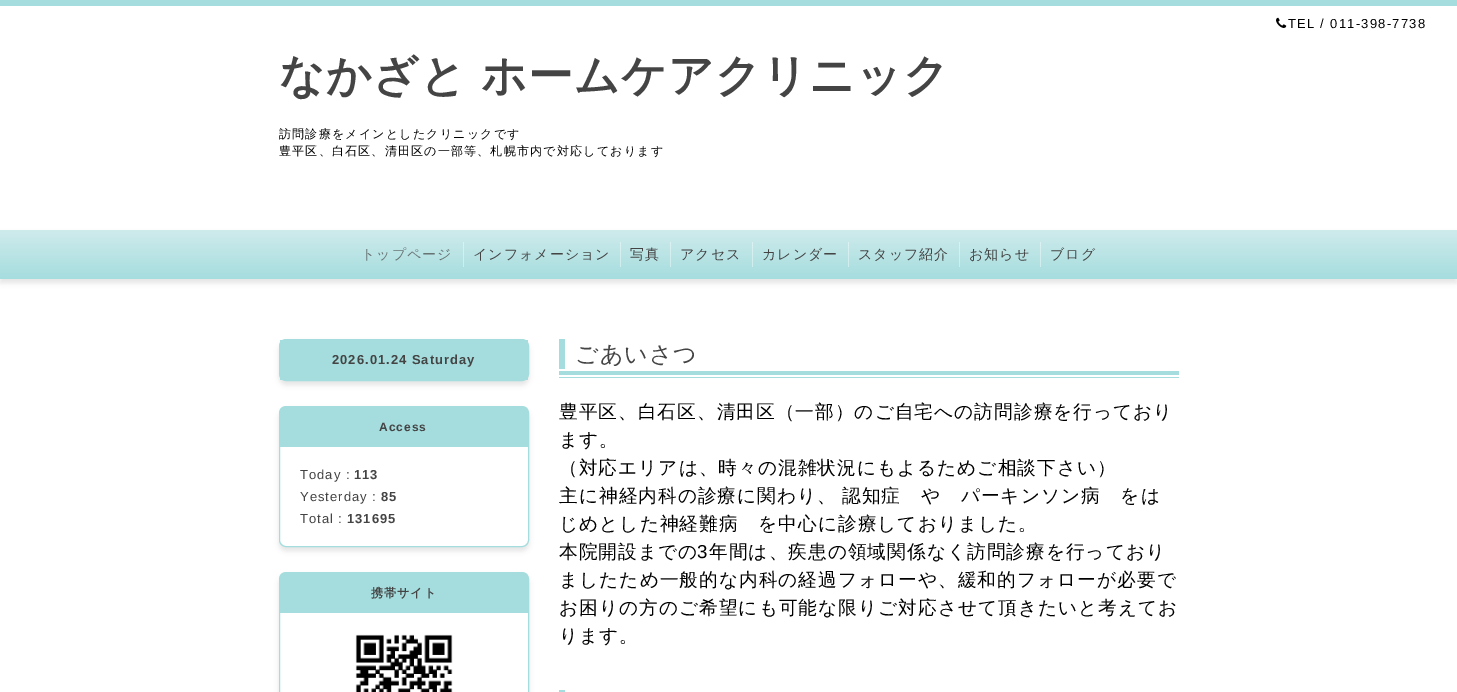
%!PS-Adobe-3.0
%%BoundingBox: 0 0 1457 692
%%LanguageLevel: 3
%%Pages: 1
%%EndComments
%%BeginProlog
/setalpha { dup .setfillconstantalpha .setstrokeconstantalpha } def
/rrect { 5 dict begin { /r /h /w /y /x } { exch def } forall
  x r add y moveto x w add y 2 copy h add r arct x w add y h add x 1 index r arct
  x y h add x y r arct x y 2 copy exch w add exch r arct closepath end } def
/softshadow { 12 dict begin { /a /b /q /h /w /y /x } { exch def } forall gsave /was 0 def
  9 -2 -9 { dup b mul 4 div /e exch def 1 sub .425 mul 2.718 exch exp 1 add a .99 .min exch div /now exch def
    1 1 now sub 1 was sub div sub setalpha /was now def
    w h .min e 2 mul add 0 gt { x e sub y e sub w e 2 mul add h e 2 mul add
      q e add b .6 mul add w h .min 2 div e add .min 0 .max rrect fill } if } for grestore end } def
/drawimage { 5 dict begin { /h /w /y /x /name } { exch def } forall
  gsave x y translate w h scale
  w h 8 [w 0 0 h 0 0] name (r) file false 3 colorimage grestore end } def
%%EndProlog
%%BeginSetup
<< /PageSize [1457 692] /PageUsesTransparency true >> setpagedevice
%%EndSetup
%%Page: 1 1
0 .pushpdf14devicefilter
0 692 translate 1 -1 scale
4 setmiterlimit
1 setgray
0 0 1457 692 rectfill
0.647 0.867 0.871 setrgbcolor
0 0 1457 6 rectfill
(images/1.raw) 1276 17 11 11 drawimage
0 setgray
0 234 1457 49 0 2.5 0.1 softshadow
gsave newpath 0 230 moveto 1457 230 lineto 1457 279 lineto 0 279 lineto closepath clip newpath
<< /ShadingType 2 /ColorSpace /DeviceRGB /Coords [729 230 729 279] /Extend [true true] /Function << /FunctionType 2 /Domain [0 1] /C0 [0.812 0.922 0.925] /C1 [0.647 0.867 0.871] /N 1 >> >> shfill grestore
gsave newpath 1040 242 moveto 1041 242 lineto 1041 267 lineto 1040 267 lineto closepath clip newpath
<< /ShadingType 2 /ColorSpace /DeviceRGB /Coords [729 230 729 279] /Extend [true true] /Function << /FunctionType 2 /Domain [0 1] /C0 [0.886 0.953 0.957] /C1 [0.788 0.922 0.922] /N 1 >> >> shfill grestore
gsave newpath 959 242 moveto 960 242 lineto 960 267 lineto 959 267 lineto closepath clip newpath
<< /ShadingType 2 /ColorSpace /DeviceRGB /Coords [729 230 729 279] /Extend [true true] /Function << /FunctionType 2 /Domain [0 1] /C0 [0.886 0.953 0.957] /C1 [0.788 0.922 0.922] /N 1 >> >> shfill grestore
gsave newpath 848 242 moveto 849 242 lineto 849 267 lineto 848 267 lineto closepath clip newpath
<< /ShadingType 2 /ColorSpace /DeviceRGB /Coords [729 230 729 279] /Extend [true true] /Function << /FunctionType 2 /Domain [0 1] /C0 [0.886 0.953 0.957] /C1 [0.788 0.922 0.922] /N 1 >> >> shfill grestore
gsave newpath 752 242 moveto 753 242 lineto 753 267 lineto 752 267 lineto closepath clip newpath
<< /ShadingType 2 /ColorSpace /DeviceRGB /Coords [729 230 729 279] /Extend [true true] /Function << /FunctionType 2 /Domain [0 1] /C0 [0.886 0.953 0.957] /C1 [0.788 0.922 0.922] /N 1 >> >> shfill grestore
gsave newpath 670 242 moveto 671 242 lineto 671 267 lineto 670 267 lineto closepath clip newpath
<< /ShadingType 2 /ColorSpace /DeviceRGB /Coords [729 230 729 279] /Extend [true true] /Function << /FunctionType 2 /Domain [0 1] /C0 [0.886 0.953 0.957] /C1 [0.788 0.922 0.922] /N 1 >> >> shfill grestore
gsave newpath 620 242 moveto 621 242 lineto 621 267 lineto 620 267 lineto closepath clip newpath
<< /ShadingType 2 /ColorSpace /DeviceRGB /Coords [729 230 729 279] /Extend [true true] /Function << /FunctionType 2 /Domain [0 1] /C0 [0.886 0.953 0.957] /C1 [0.788 0.922 0.922] /N 1 >> >> shfill grestore
gsave newpath 463 242 moveto 464 242 lineto 464 267 lineto 463 267 lineto closepath clip newpath
<< /ShadingType 2 /ColorSpace /DeviceRGB /Coords [729 230 729 279] /Extend [true true] /Function << /FunctionType 2 /Domain [0 1] /C0 [0.886 0.953 0.957] /C1 [0.788 0.922 0.922] /N 1 >> >> shfill grestore
279 343 250 42 7 2.5 0.1 softshadow
0.647 0.867 0.871 setrgbcolor
279.5 339.5 249 41 6.5 rrect stroke
280 340 248 40 rectfill
gsave
newpath 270 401 moveto 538 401 lineto 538 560 lineto 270 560 lineto closepath 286 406 moveto 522 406 lineto 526 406 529 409 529 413 curveto 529 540 lineto 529 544 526 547 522 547 curveto 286 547 lineto 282 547 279 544 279 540 curveto 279 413 lineto 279 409 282 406 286 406 curveto closepath eoclip newpath
0 setgray
279 410 250 141 7 2.5 0.1 softshadow
grestore
279.5 406.5 249 140 6.5 rrect stroke
newpath 284 407 moveto 524 407 lineto 526 407 528 409 528 411 curveto 528 447 lineto 280 447 lineto 280 411 lineto 280 409 282 407 284 407 curveto closepath fill
gsave
newpath 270 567 moveto 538 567 lineto 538 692 lineto 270 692 lineto closepath 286 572 moveto 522 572 lineto 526 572 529 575 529 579 curveto 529 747 lineto 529 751 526 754 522 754 curveto 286 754 lineto 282 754 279 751 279 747 curveto 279 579 lineto 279 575 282 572 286 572 curveto closepath eoclip newpath
0 setgray
279 576 250 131 7 2.5 0.1 softshadow
grestore
279.5 572.5 249 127 6.5 rrect stroke
newpath 284 573 moveto 524 573 lineto 526 573 528 575 528 577 curveto 528 613 lineto 280 613 lineto 280 577 lineto 280 575 282 573 284 573 curveto closepath fill
(images/2.raw) 355 634 98 58 drawimage
559 339 6 30 rectfill
559 371 620 4 rectfill
559 377 620 1 rectfill
559 690 6 2 rectfill
/LiberationSans-Regular [13 0 0 -13 0 0] selectfont
0 setgray
1288 28 moveto 1.25 0 (TEL / 011-398-7738) ashow
/WenQuanYiZenHei-Bold [45 0 0 -45 0 0] selectfont
0.267 setgray
279 91 moveto -1 0 32 1 0 (なかざと ホームケアクリニック) awidthshow
/WenQuanYiZenHei-Medium [12 0 0 -12 0 0] selectfont
0 setgray
279 138 moveto 1.2 0 (訪問診療をメインとしたクリニックです) ashow
279 155 moveto 1.2 0 (豊平区、白石区、清田区の一部等、札幌市内で対応しております) ashow
/WenQuanYiZenHei-Medium [14 0 0 -14 0 0] selectfont
0.408 0.455 0.455 setrgbcolor
361 259 moveto 1 0 (トップページ) ashow
0.267 setgray
473 259 moveto 1 0 (インフォメーション) ashow
630 259 moveto 1 0 (写真) ashow
680 259 moveto 1 0 (アクセス) ashow
762 259 moveto 1 0 (カレンダー) ashow
858 259 moveto 1 0 (スタッフ紹介) ashow
969 259 moveto 1 0 (お知らせ) ashow
1050 259 moveto 1 0 (ブログ) ashow
/LiberationSans-Bold [13 0 0 -13 0 0] selectfont
332 364 moveto 1 0 (2026.01.24 Saturday) ashow
/LiberationSans-Bold [12 0 0 -12 0 0] selectfont
379 431 moveto 1 0 (Access) ashow
/LiberationSans-Regular [13 0 0 -13 0 0] selectfont
300 479 moveto 1 0 (Today :) ashow
/LiberationSans-Bold [13 0 0 -13 0 0] selectfont
354 479 moveto 1 0 (113) ashow
/LiberationSans-Regular [13 0 0 -13 0 0] selectfont
300 501 moveto 1 0 (Yesterday :) ashow
/LiberationSans-Bold [13 0 0 -13 0 0] selectfont
381 501 moveto 1 0 (85) ashow
/LiberationSans-Regular [13 0 0 -13 0 0] selectfont
300 523 moveto 1 0 (Total :) ashow
/LiberationSans-Bold [13 0 0 -13 0 0] selectfont
347 523 moveto 1 0 (131695) ashow
/WenQuanYiZenHei-Bold [12 0 0 -12 0 0] selectfont
371 597 moveto 1 0 (携帯サイト) ashow
/WenQuanYiZenHei-Medium [23 0 0 -23 0 0] selectfont
575 362 moveto 1 0 (ごあいさつ) ashow
/WenQuanYiZenHei-Medium [18.7 0 0 -18.7 0 0] selectfont
0 setgray
559 418 moveto 1 0 (豊平区、白石区、清田区（一部）のご自宅への訪問診療を行っており) ashow
559 446 moveto 1 0 (ます。) ashow
559 474 moveto 1 0 (（対応エリアは、時々の混雑状況にもよるためご相談下さい）) ashow
559 502 moveto 1 0 (主に神経内科の診療に関わり、) ashow
842 502 moveto 1 0 (認知症　や　パーキンソン病　をは) ashow
559 530 moveto 1 0 (じめとした神経難病　を中心に診療しておりました。) ashow
559 558 moveto 1 0 (本院開設までの) ashow
/LiberationSans-Regular [18.7 0 0 -18.7 0 0] selectfont
697 558 moveto 1 0 (3) ashow
/WenQuanYiZenHei-Medium [18.7 0 0 -18.7 0 0] selectfont
709 558 moveto 1 0 (年間は、疾患の領域関係なく訪問診療を行っており) ashow
559 586 moveto 1 0 (ましたため一般的な内科の経過フォローや、緩和的フォローが必要で) ashow
559 614 moveto 1 0 (お困りの方のご希望にも可能な限りご対応させて頂きたいと考えてお) ashow
559 642 moveto 1 0 (ります。) ashow
.poppdf14devicefilter showpage
%%EOF
